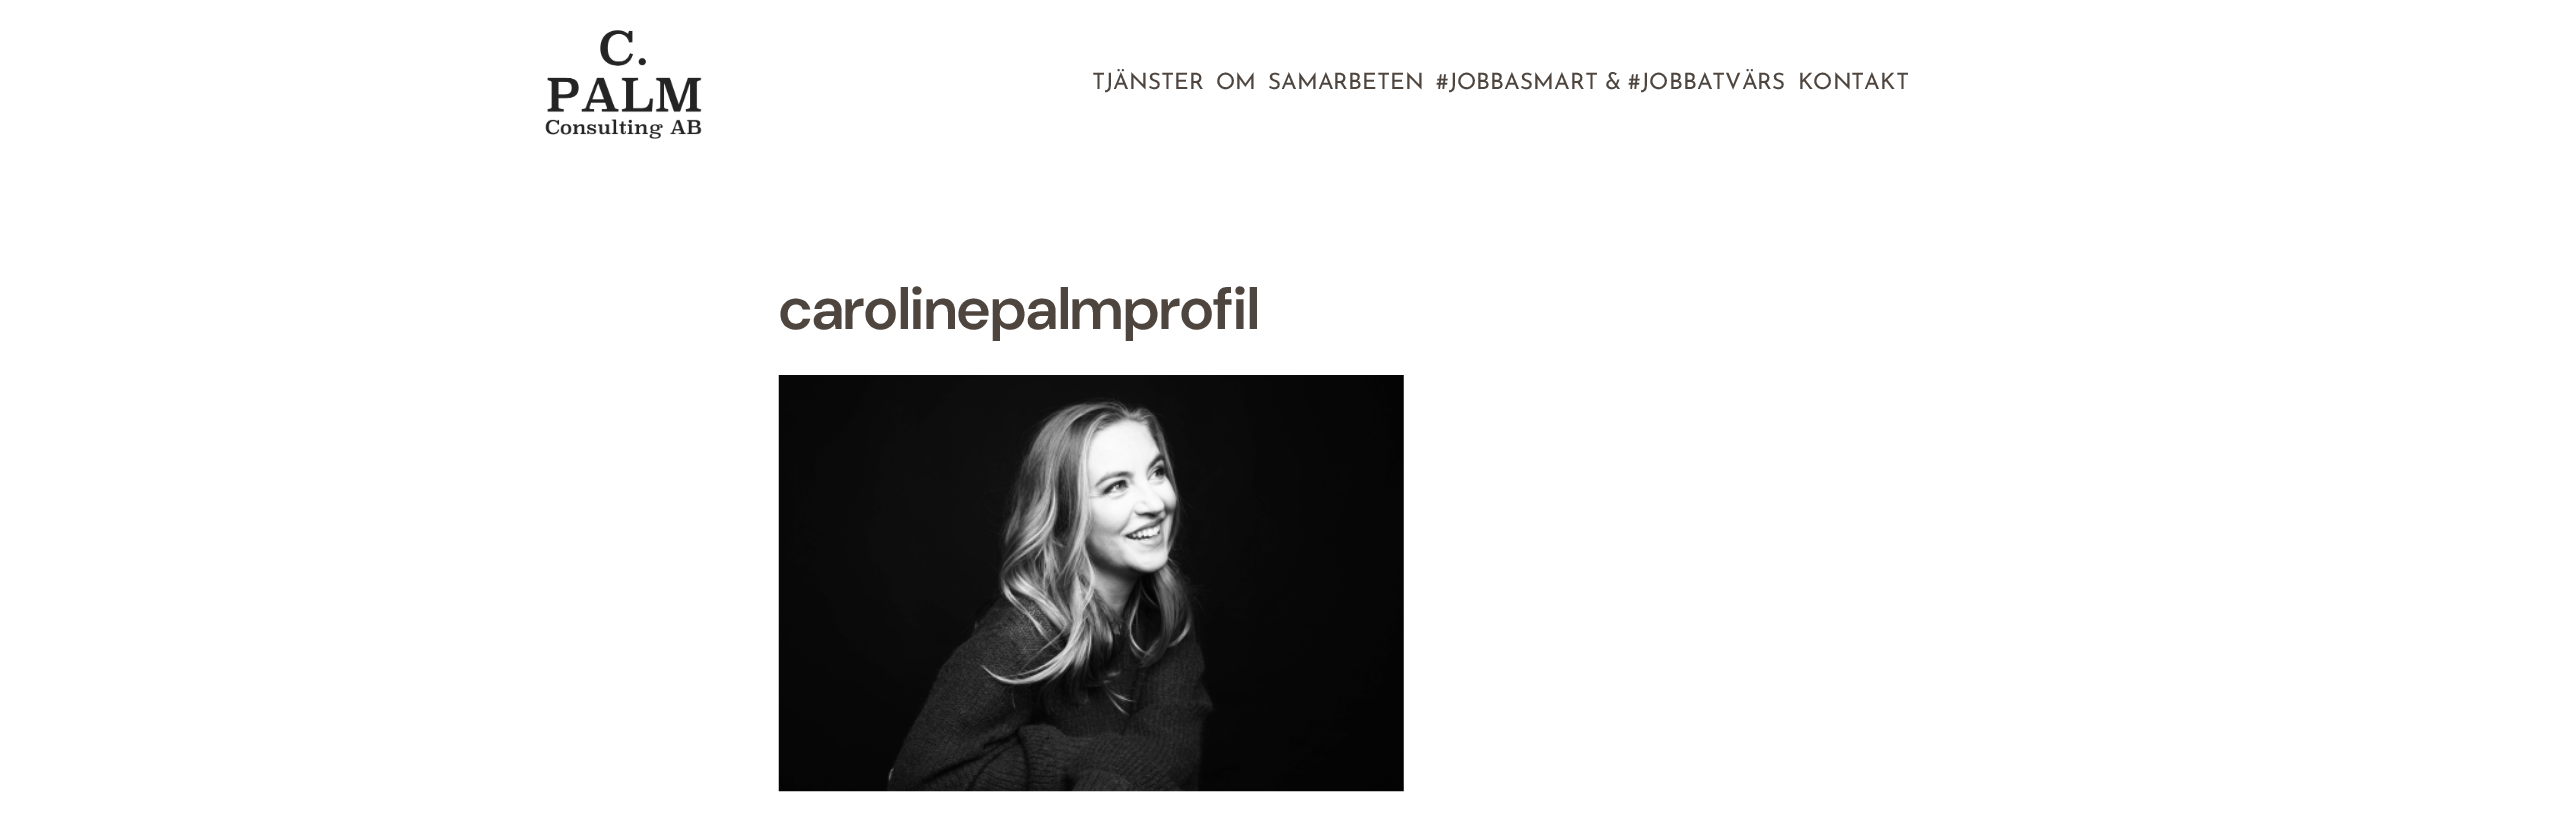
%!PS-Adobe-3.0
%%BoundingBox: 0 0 2557 815
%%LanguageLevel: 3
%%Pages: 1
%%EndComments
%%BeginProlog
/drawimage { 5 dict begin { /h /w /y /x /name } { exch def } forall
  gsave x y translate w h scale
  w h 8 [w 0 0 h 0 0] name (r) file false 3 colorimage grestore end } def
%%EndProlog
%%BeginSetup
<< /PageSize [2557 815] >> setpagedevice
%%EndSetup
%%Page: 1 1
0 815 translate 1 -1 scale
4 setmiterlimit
1 setgray
0 0 2557 815 rectfill
(images/1.raw) 545 30 157 109 drawimage
(images/2.raw) 778 375 626 417 drawimage
/JosefinSans-Regular [22.5 0 0 -22.5 0 0] selectfont
0.306 0.271 0.247 setrgbcolor
1092 89 moveto (TJÄNSTER) show
1216 89 moveto (OM) show
1268 89 moveto (SAMARBETEN) show
1436 89 moveto (#JOBBASMART & #JOBBATVÄRS) show
1798 89 moveto (KONTAKT) show
/DMSans-SemiBold [60 0 0 -60 0 0] selectfont
779 329 moveto (carolinepalmprofil) show
showpage
%%EOF
